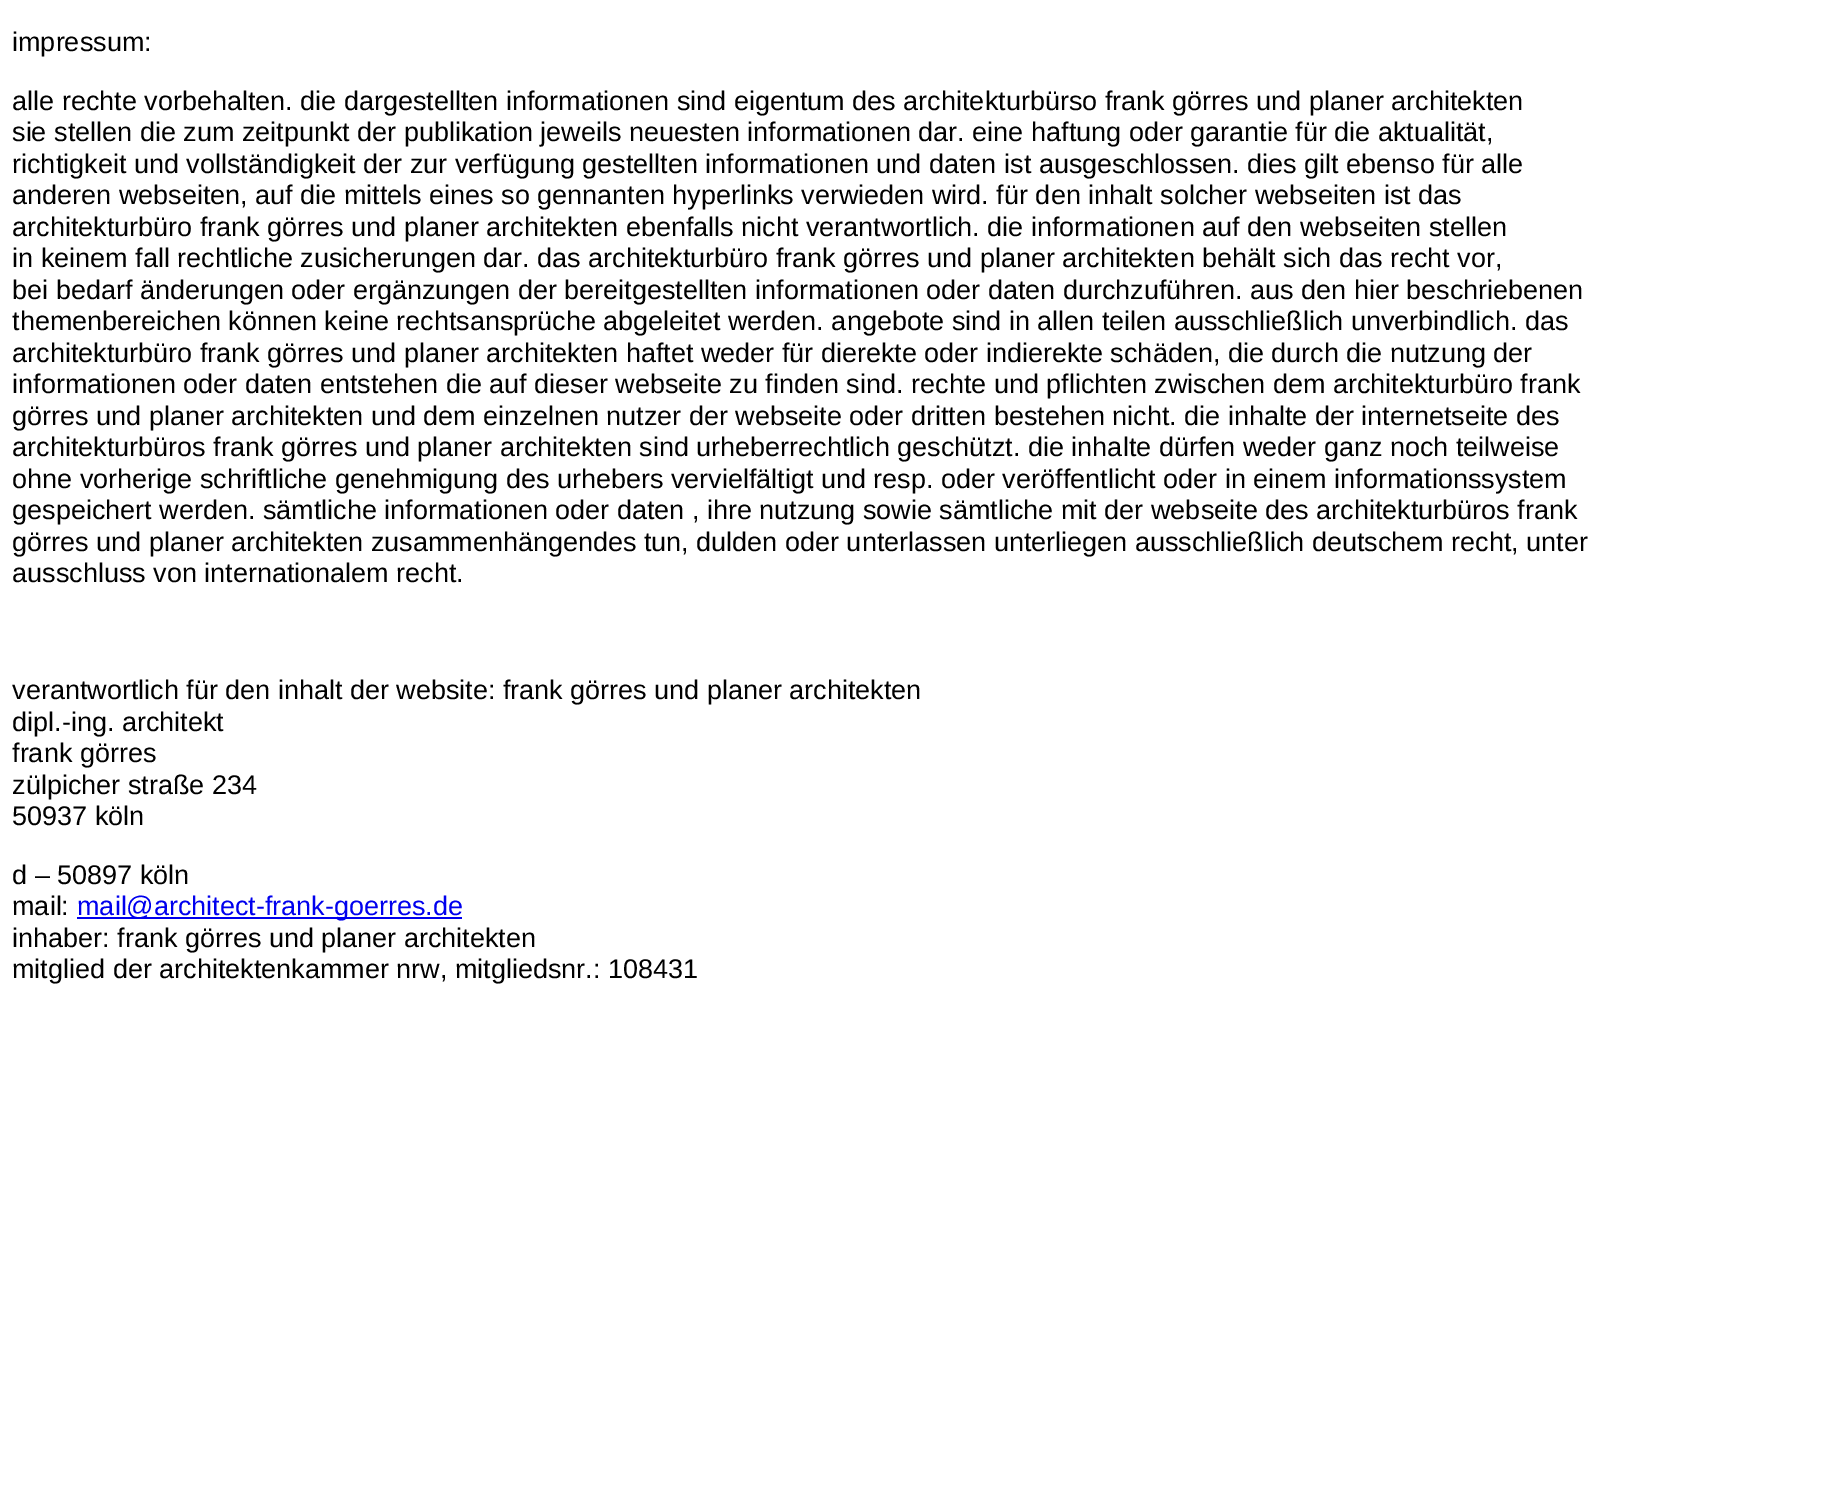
%!PS-Adobe-3.0
%%BoundingBox: 0 0 1829 1507
%%LanguageLevel: 3
%%Pages: 1
%%EndComments
%%BeginProlog
%%EndProlog
%%BeginSetup
<< /PageSize [1829 1507] >> setpagedevice
%%EndSetup
%%Page: 1 1
0 1507 translate 1 -1 scale
4 setmiterlimit
1 setgray
0 0 1829 1507 rectfill
0 0 0.933 setrgbcolor
77 917 385 2 rectfill
/LiberationSans-Regular [27 0 0 -27 0 0] selectfont
0 setgray
12 51 moveto (impressum:) show
12 110 moveto (alle rechte vorbehalten. die dargestellten informationen sind eigentum des architekturbürso frank görres und planer architekten) show
12 141 moveto (sie stellen die zum zeitpunkt der publikation jeweils neuesten informationen dar. eine haftung oder garantie für die aktualität,) show
12 173 moveto (richtigkeit und vollständigkeit der zur verfügung gestellten informationen und daten ist ausgeschlossen. dies gilt ebenso für alle) show
12 204 moveto (anderen webseiten, auf die mittels eines so gennanten hyperlinks verwieden wird. für den inhalt solcher webseiten ist das) show
12 236 moveto (architekturbüro frank görres und planer architekten ebenfalls nicht verantwortlich. die informationen auf den webseiten stellen) show
12 267 moveto (in keinem fall rechtliche zusicherungen dar. das architekturbüro frank görres und planer architekten behält sich das recht vor,) show
12 299 moveto (bei bedarf änderungen oder ergänzungen der bereitgestellten informationen oder daten durchzuführen. aus den hier beschriebenen) show
12 330 moveto (themenbereichen können keine rechtsansprüche abgeleitet werden. angebote sind in allen teilen ausschließlich unverbindlich. das) show
12 362 moveto (architekturbüro frank görres und planer architekten haftet weder für dierekte oder indierekte schäden, die durch die nutzung der) show
12 393 moveto (informationen oder daten entstehen die auf dieser webseite zu finden sind. rechte und pflichten zwischen dem architekturbüro frank) show
12 425 moveto (görres und planer architekten und dem einzelnen nutzer der webseite oder dritten bestehen nicht. die inhalte der internetseite des) show
12 456 moveto (architekturbüros frank görres und planer architekten sind urheberrechtlich geschützt. die inhalte dürfen weder ganz noch teilweise) show
12 488 moveto (ohne vorherige schriftliche genehmigung des urhebers vervielfältigt und resp. oder veröffentlicht oder in einem informationssystem) show
12 519 moveto (gespeichert werden. sämtliche informationen oder daten , ihre nutzung sowie sämtliche mit der webseite des architekturbüros frank) show
12 551 moveto (görres und planer architekten zusammenhängendes tun, dulden oder unterlassen unterliegen ausschließlich deutschem recht, unter) show
12 582 moveto (ausschluss von internationalem recht.) show
12 699 moveto (verantwortlich für den inhalt der website: frank görres und planer architekten) show
12 731 moveto (dipl.-ing. architekt) show
12 762 moveto (frank görres) show
12 794 moveto (zülpicher straße 234) show
12 825 moveto (50937 köln) show
12 884 moveto (d – 50897 köln) show
12 915 moveto (mail:) show
0 0 0.933 setrgbcolor
77 915 moveto (mail@architect-frank-goerres.de) show
0 setgray
12 947 moveto (inhaber: frank görres und planer architekten) show
12 978 moveto (mitglied der architektenkammer nrw, mitgliedsnr.: 108431) show
showpage
%%EOF
